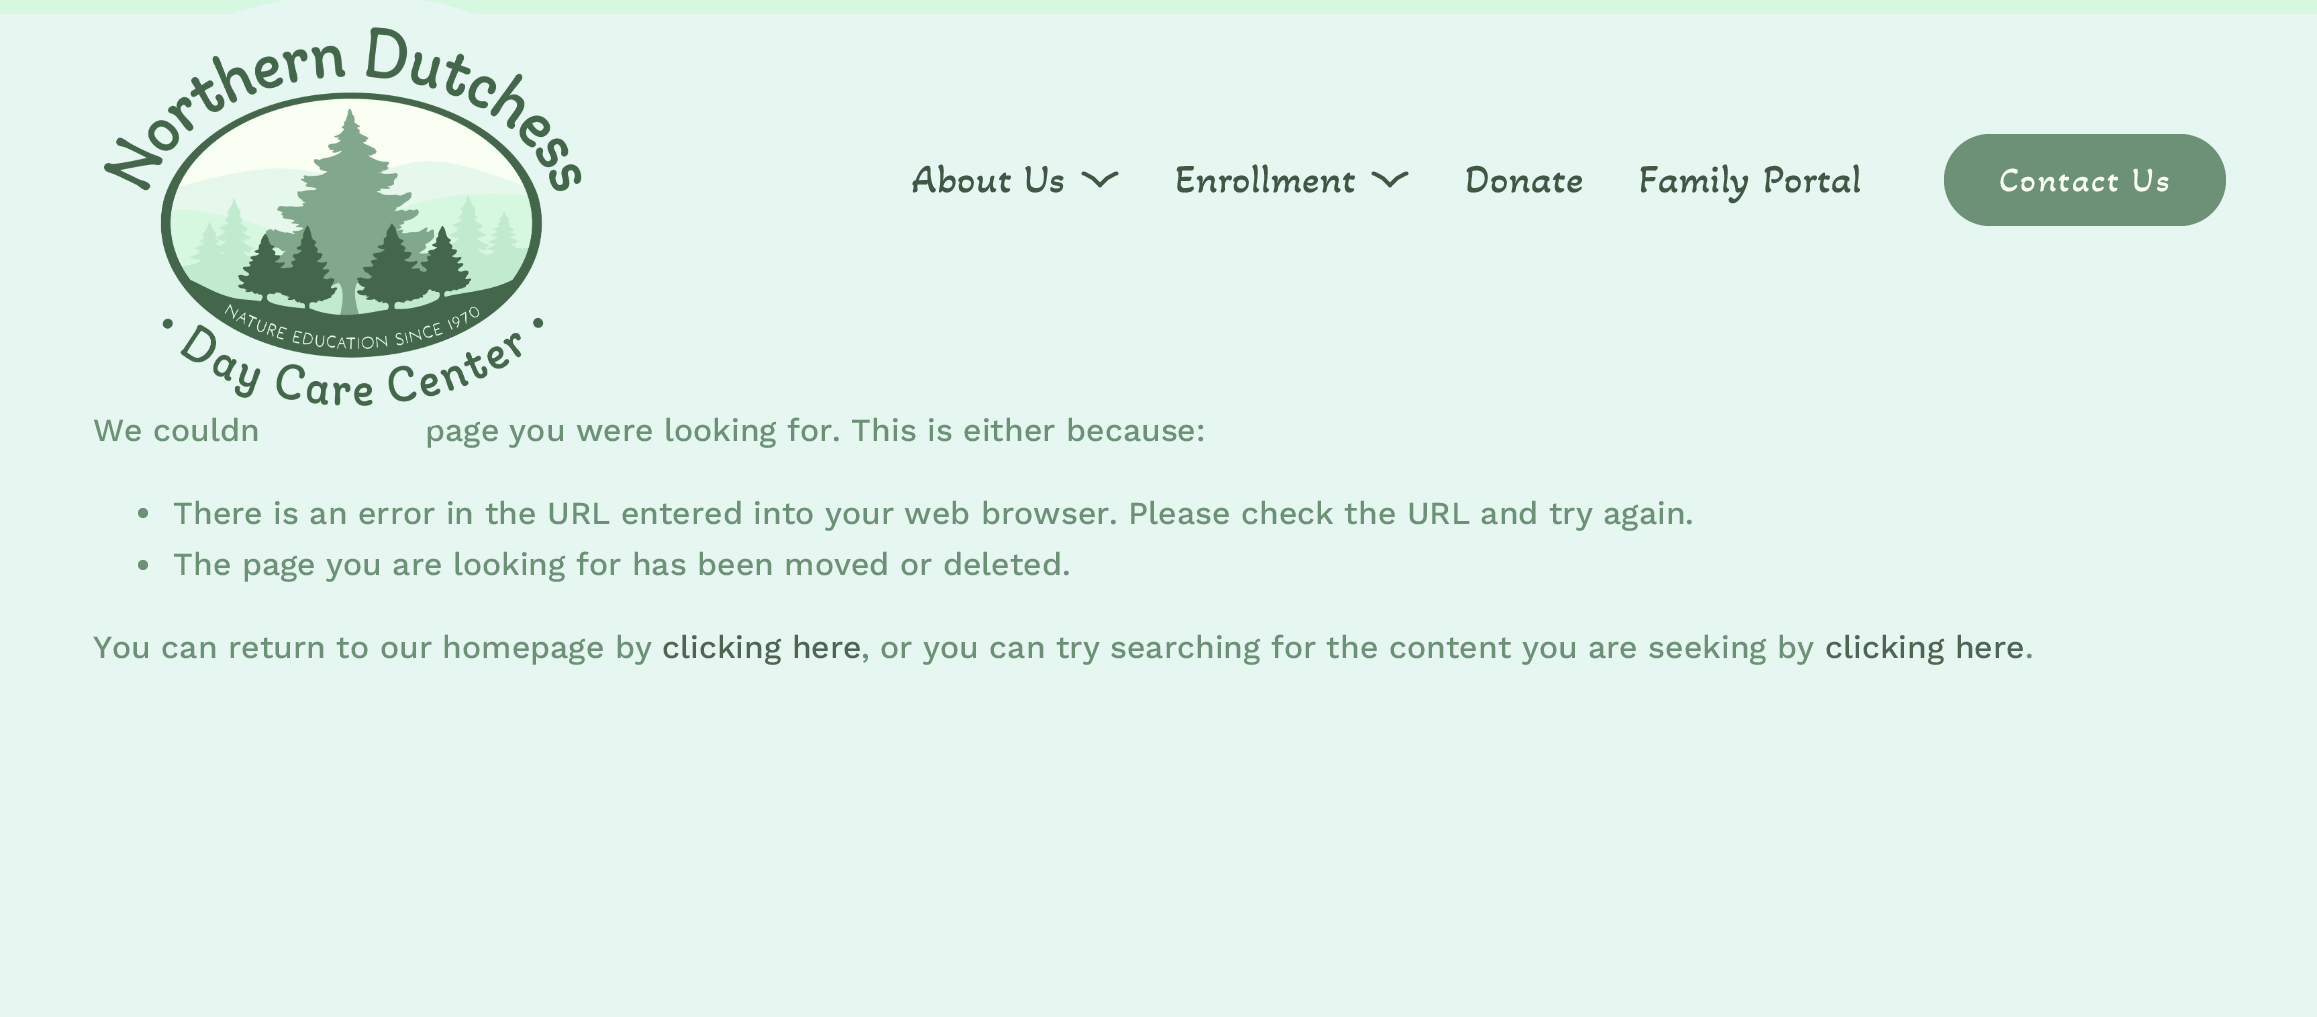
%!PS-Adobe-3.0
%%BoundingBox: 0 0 2317 1017
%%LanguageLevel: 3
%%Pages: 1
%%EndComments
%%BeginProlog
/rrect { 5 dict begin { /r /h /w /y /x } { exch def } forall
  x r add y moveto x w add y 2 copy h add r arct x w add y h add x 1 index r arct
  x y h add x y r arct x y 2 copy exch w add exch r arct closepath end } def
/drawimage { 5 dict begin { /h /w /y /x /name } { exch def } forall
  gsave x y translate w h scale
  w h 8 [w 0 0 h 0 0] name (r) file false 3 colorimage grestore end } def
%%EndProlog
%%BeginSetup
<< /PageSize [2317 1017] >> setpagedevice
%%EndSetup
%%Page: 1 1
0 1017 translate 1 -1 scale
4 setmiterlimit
0.902 0.965 0.945 setrgbcolor
0 0 2317 1017 rectfill
0.839 0.973 0.882 setrgbcolor
0 0 2317 14 rectfill
0.255 0.337 0.271 setrgbcolor
3.7 setlinewidth
1 setlinecap
1 setlinejoin
newpath 1083.5 173.5 moveto 1090.5 175.5 1096 180 1100 185.5 curveto 1104 180 1109.5 175.5 1116.5 173.5 curveto stroke
newpath 1373.5 173.5 moveto 1380.5 175.5 1386 180 1390 185.5 curveto 1394 180 1399.5 175.5 1406.5 173.5 curveto stroke
0.424 0.569 0.467 setrgbcolor
1944 134 282 92 46 rrect fill
newpath 143 513 5 0 360 arc closepath fill
newpath 143 565 5 0 360 arc closepath fill
/AkayaTelivigala-Regular [40.5 0 0 -40.5 0 0] selectfont
0.255 0.337 0.271 setrgbcolor
912 192 moveto 0.4 0 (About Us) ashow
1175 192 moveto 0.4 0 (Enrollment) ashow
1465 192 moveto 0.4 0 (Donate) ashow
1639 192 moveto 0.4 0 (Family Portal) ashow
/AkayaTelivigala-Regular [34.75 0 0 -34.75 0 0] selectfont
0.976 1 0.949 setrgbcolor
1999 191 moveto 1.75 0 (Contact Us) ashow
/WorkSans-Medium [32 0 0 -32 0 0] selectfont
0.424 0.569 0.467 setrgbcolor
93 441 moveto (We couldn) show
425 441 moveto (page you were looking for. This is either because:) show
0.902 0.965 0.945 setrgbcolor
newpath 354 -6 moveto 515.5 -6 646 92.5 646 214 curveto 646 335.5 515.5 434 354 434 curveto 192.5 434 62 335.5 62 214 curveto 62 92.5 192.5 -6 354 -6 curveto closepath fill
(images/1.raw) 104 27 478 379 drawimage
0.424 0.569 0.467 setrgbcolor
173 524 moveto (There is an error in the URL entered into your web browser. Please check the URL and try again.) show
173 575 moveto (The page you are looking for has been moved or deleted.) show
93 658 moveto (You can return to our homepage by) show
0.314 0.392 0.329 setrgbcolor
662 658 moveto (clicking here) show
0.424 0.569 0.467 setrgbcolor
861 658 moveto (, or you can try searching for the content you are seeking by) show
0.314 0.392 0.329 setrgbcolor
1825 658 moveto (clicking here) show
0.424 0.569 0.467 setrgbcolor
2025 658 moveto (.) show
showpage
%%EOF
